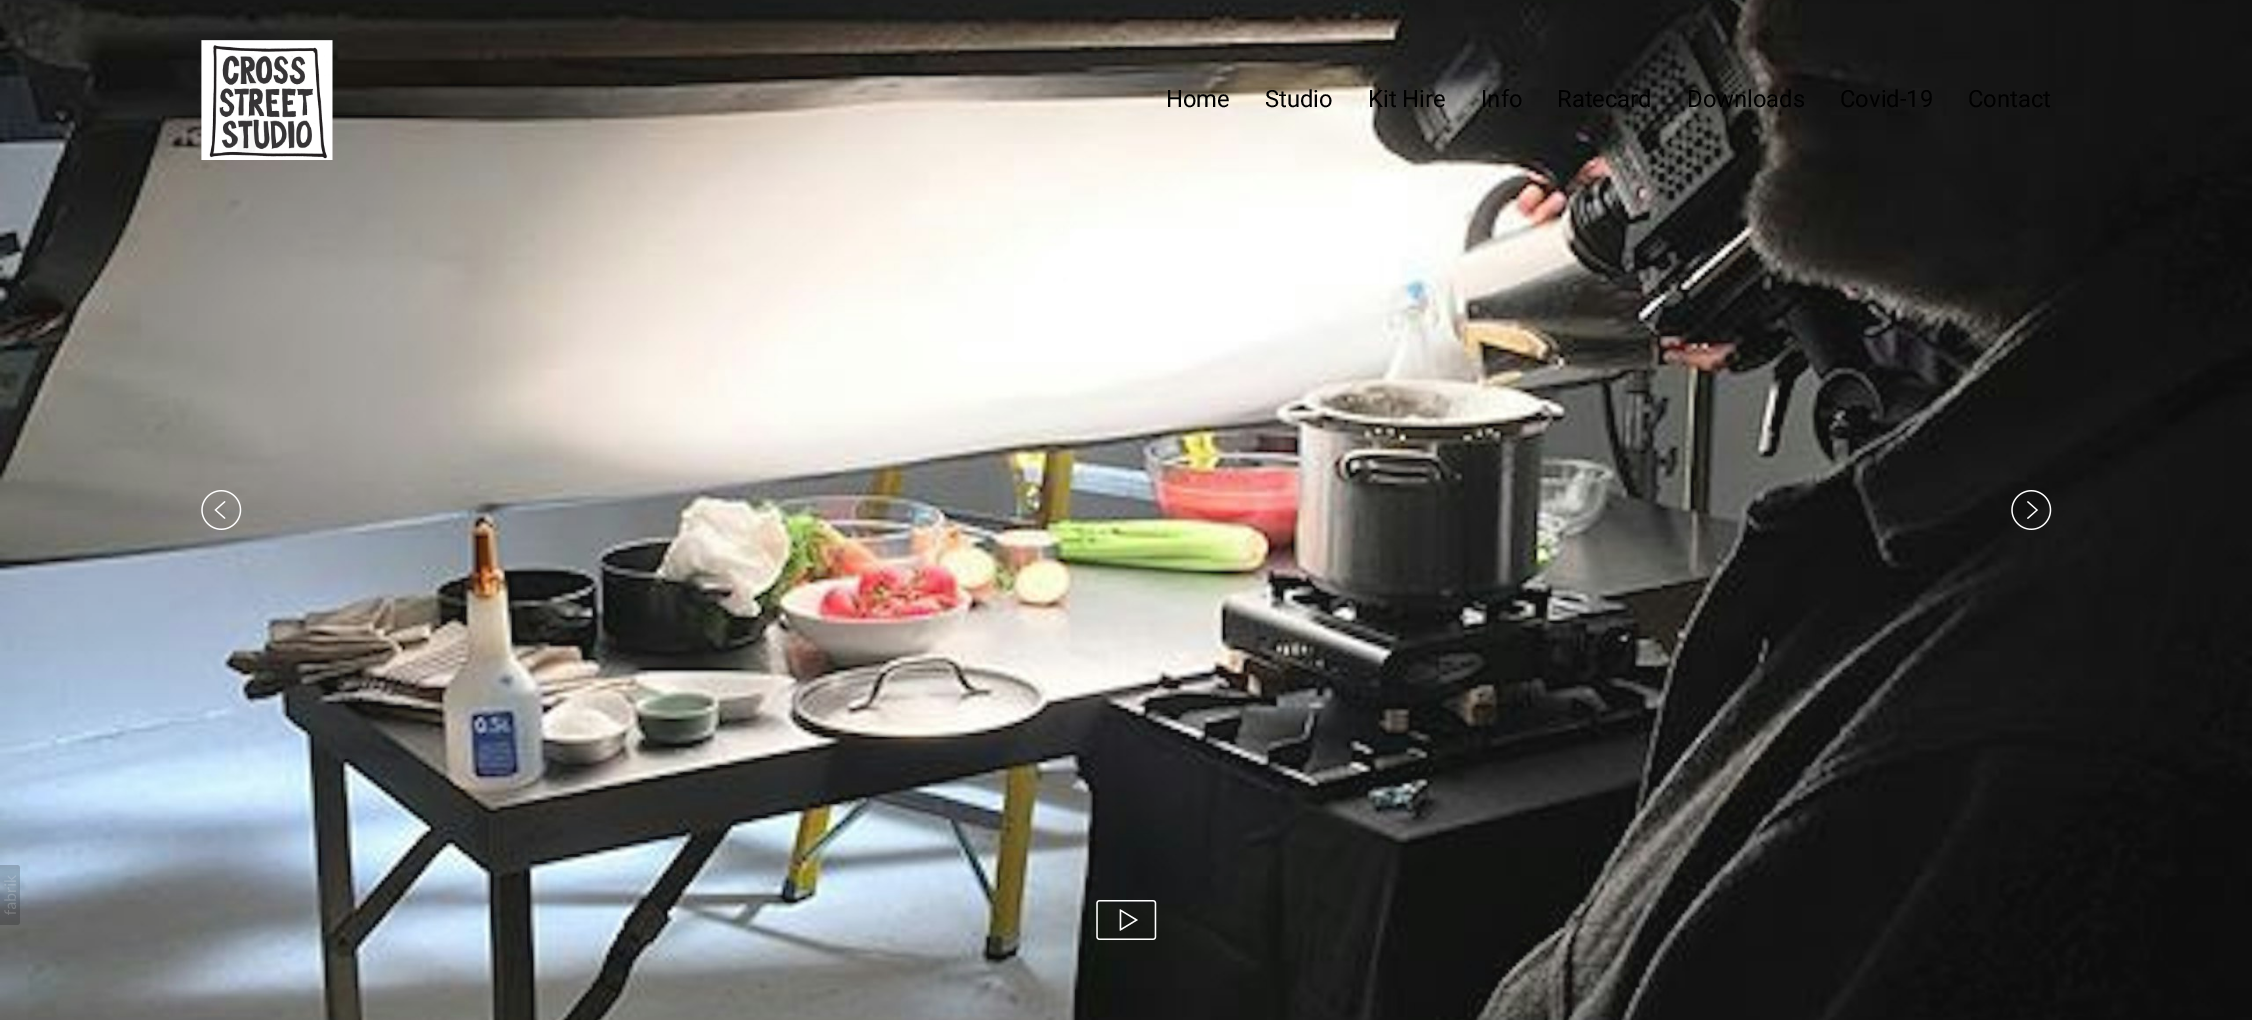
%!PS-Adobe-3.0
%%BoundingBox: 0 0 2252 1020
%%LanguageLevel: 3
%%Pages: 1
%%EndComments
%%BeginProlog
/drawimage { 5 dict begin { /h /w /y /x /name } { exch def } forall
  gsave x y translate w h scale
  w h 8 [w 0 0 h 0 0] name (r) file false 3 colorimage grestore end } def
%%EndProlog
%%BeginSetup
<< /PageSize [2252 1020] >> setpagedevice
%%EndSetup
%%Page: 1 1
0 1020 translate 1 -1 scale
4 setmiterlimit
1 setgray
0 0 2252 1020 rectfill
(images/1.raw) 0 0 2252 1020 drawimage
(images/2.raw) 1096 900 61 40 drawimage
(images/3.raw) 201 490 41 40 drawimage
(images/4.raw) 2011 490 41 40 drawimage
(images/5.raw) 201 40 132 120 drawimage
(images/6.raw) 0 865 20 60 drawimage
/Roboto-Regular [23.75 0 0 -23.75 0 0] selectfont
0 setgray
1166 107 moveto (Home) show
1265 107 moveto (Studio) show
1368 107 moveto (Kit Hire) show
1481 107 moveto (Info) show
1557 107 moveto (Ratecard) show
1687 107 moveto (Downloads) show
1840 107 moveto (Covid-19) show
1968 107 moveto (Contact) show
showpage
%%EOF
